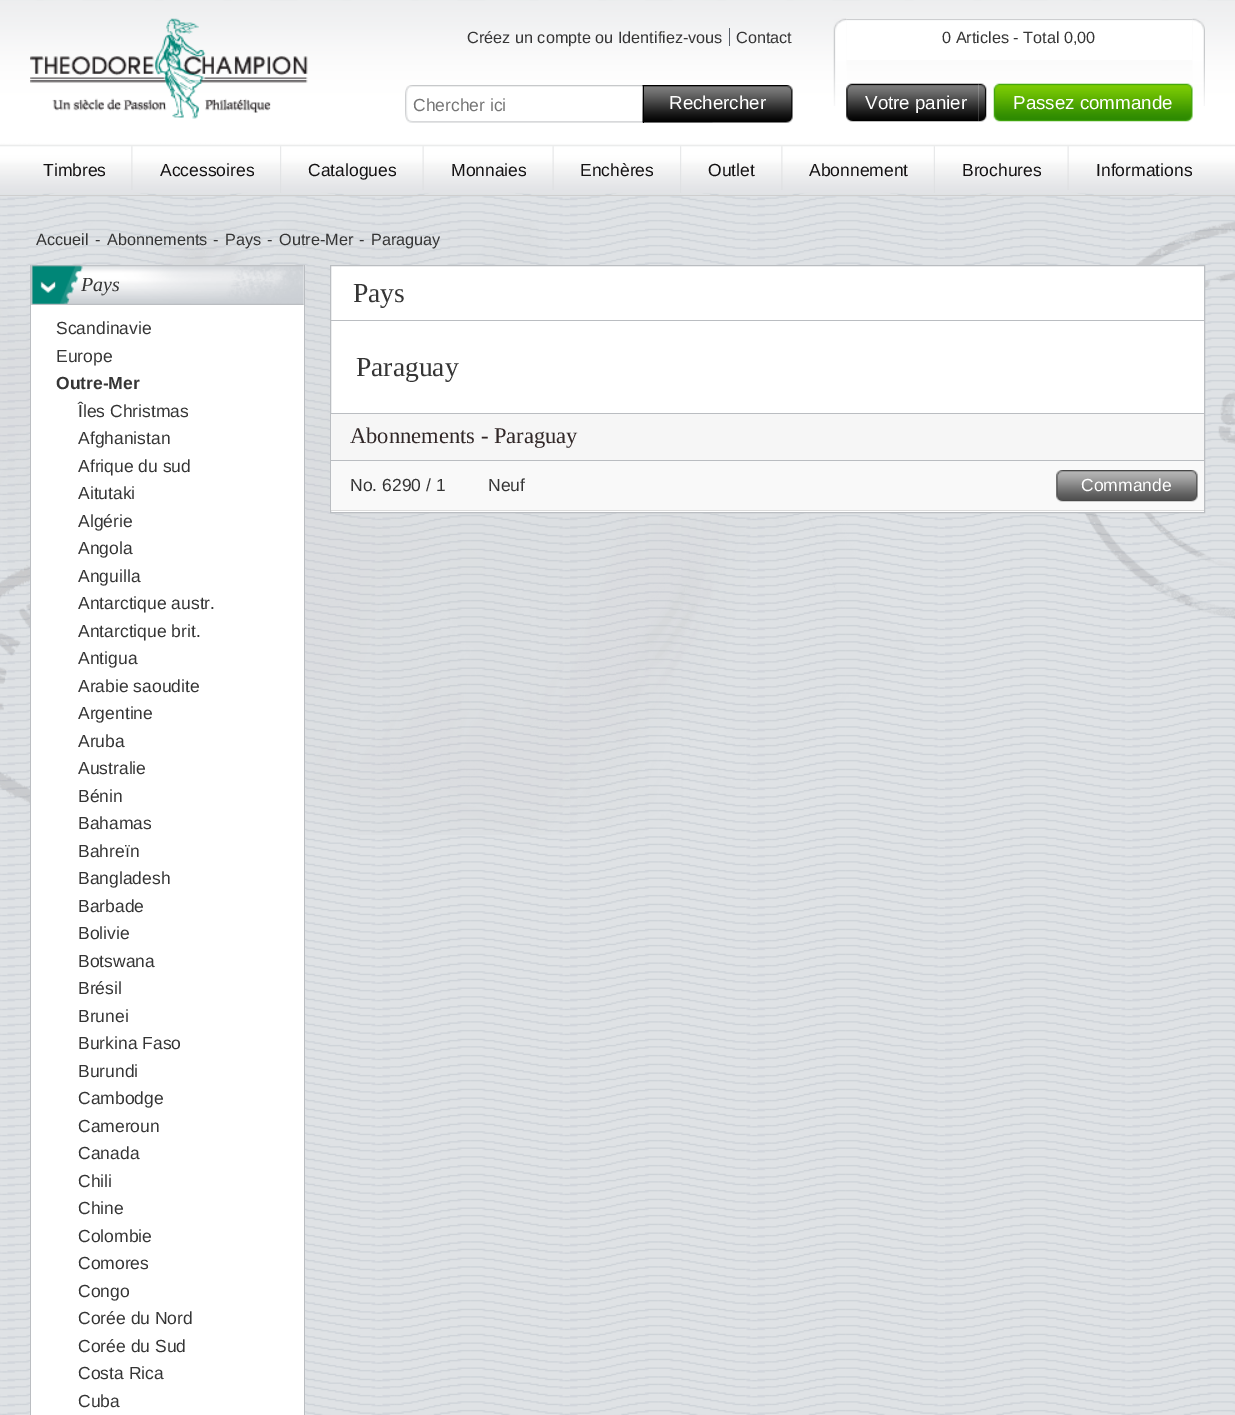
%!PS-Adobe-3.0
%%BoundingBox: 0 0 1235 1415
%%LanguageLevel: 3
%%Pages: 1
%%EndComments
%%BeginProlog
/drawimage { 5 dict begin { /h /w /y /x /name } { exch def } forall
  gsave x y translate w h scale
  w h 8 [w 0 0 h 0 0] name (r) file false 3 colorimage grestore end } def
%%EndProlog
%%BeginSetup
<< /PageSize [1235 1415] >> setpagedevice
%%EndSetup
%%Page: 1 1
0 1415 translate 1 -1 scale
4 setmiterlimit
1 setgray
0 0 1235 1415 rectfill
(images/1.raw) 0 0 1235 1415 drawimage
(images/2.raw) 0 221 1235 614 drawimage
(images/3.raw) 0 0 1235 194 drawimage
0.812 setgray
0 195 1235 1 rectfill
(images/4.raw) 30 18 278 101 drawimage
0.349 0.376 0.412 setrgbcolor
729 28 1 18 rectfill
(images/5.raw) 405 85 308 38 drawimage
(images/6.raw) 642 85 143 38 drawimage
0 setgray
643 85 1 38 rectfill
(images/7.raw) 785 85 8 38 drawimage
(images/8.raw) 833 18 14 88 drawimage
(images/9.raw) 846 19 347 41 drawimage
(images/10.raw) 846 83 133 39 drawimage
(images/11.raw) 978 83 9 39 drawimage
(images/12.raw) 993 83 192 39 drawimage
(images/14.raw) 1192 18 13 88 drawimage
(images/13.raw) 1185 83 8 39 drawimage
(images/15.raw) 131 146 2 44 drawimage
(images/16.raw) 280 146 2 47 drawimage
(images/17.raw) 422 146 2 44 drawimage
(images/17.raw) 552 146 2 44 drawimage
(images/16.raw) 680 146 2 47 drawimage
(images/15.raw) 781 146 2 44 drawimage
(images/18.raw) 933 146 2 47 drawimage
(images/17.raw) 1067 146 2 44 drawimage
1 setgray
31 265 273 1150 rectfill
0.729 0.741 0.757 setrgbcolor
304 265 1 1150 rectfill
30 265 1 1150 rectfill
(images/19.raw) 31 265 273 40 drawimage
(images/20.raw) 40 280 16 13 drawimage
1 setgray
newpath 330.5 265.5 moveto 1204.5 265.5 lineto 1204.5 512.5 lineto 330.5 512.5 lineto closepath gsave fill grestore
0.729 0.741 0.757 setrgbcolor
stroke
331 320 873 1 rectfill
0.965 setgray
331 414 873 46 rectfill
0.729 0.741 0.757 setrgbcolor
331 413 873 1 rectfill
331 460 873 1 rectfill
0.976 setgray
331 461 873 49 rectfill
0.859 setgray
331 510 873 1 rectfill
(images/21.raw) 1056 470 134 32 drawimage
(images/22.raw) 1190 470 8 32 drawimage
/LiberationSans-Regular [16.25 0 0 -16.25 0 0] selectfont
0.208 setgray
467 43 moveto (Créez un compte ou Identifiez-vous) show
736 43 moveto (Contact) show
/LiberationSans-Regular [17.5 0 0 -17.5 0 0] selectfont
0.459 setgray
413 111 moveto (Chercher ici) show
/LiberationSans-Regular [18.75 0 0 -18.75 0 0] selectfont
1 setgray
669 109 moveto (Rechercher) show
/LiberationSans-Regular [16.25 0 0 -16.25 0 0] selectfont
0.208 setgray
942 43 moveto (0 Articles - Total 0,00) show
/LiberationSans-Regular [18.75 0 0 -18.75 0 0] selectfont
1 setgray
865 109 moveto (Votre panier) show
1013 109 moveto (Passez commande) show
/LiberationSans-Regular [17.5 0 0 -17.5 0 0] selectfont
0.078 0.071 0.075 setrgbcolor
43 176 moveto (Timbres) show
160 176 moveto (Accessoires) show
308 176 moveto (Catalogues) show
451 176 moveto (Monnaies) show
580 176 moveto (Enchères) show
708 176 moveto (Outlet) show
809 176 moveto (Abonnement) show
962 176 moveto (Brochures) show
1096 176 moveto (Informations) show
/LiberationSans-Regular [16.25 0 0 -16.25 0 0] selectfont
0.208 setgray
36 245 moveto (Accueil) show
95 245 moveto (-) show
107 245 moveto (Abonnements) show
213 245 moveto (-) show
225 245 moveto (Pays) show
267 245 moveto (-) show
279 245 moveto (Outre-Mer) show
359 245 moveto (-) show
371 245 moveto (Paraguay) show
/LiberationSerif-Italic [20 0 0 -20 0 0] selectfont
81 291 moveto (Pays) show
/LiberationSans-Regular [17.5 0 0 -17.5 0 0] selectfont
56 334 moveto (Scandinavie) show
56 362 moveto (Europe) show
/LiberationSans-Bold [17.5 0 0 -17.5 0 0] selectfont
56 389 moveto (Outre-Mer) show
/LiberationSans-Regular [17.5 0 0 -17.5 0 0] selectfont
78 417 moveto (Îles Christmas) show
78 444 moveto (Afghanistan) show
78 472 moveto (Afrique du sud) show
78 499 moveto (Aitutaki) show
78 527 moveto (Algérie) show
78 554 moveto (Angola) show
78 582 moveto (Anguilla) show
78 609 moveto (Antarctique austr.) show
78 637 moveto (Antarctique brit.) show
78 664 moveto (Antigua) show
78 692 moveto (Arabie saoudite) show
78 719 moveto (Argentine) show
78 747 moveto (Aruba) show
78 774 moveto (Australie) show
78 802 moveto (Bénin) show
78 829 moveto (Bahamas) show
78 857 moveto (Bahreïn) show
78 884 moveto (Bangladesh) show
78 912 moveto (Barbade) show
78 939 moveto (Bolivie) show
78 967 moveto (Botswana) show
78 994 moveto (Brésil) show
78 1022 moveto (Brunei) show
78 1049 moveto (Burkina Faso) show
78 1077 moveto (Burundi) show
78 1104 moveto (Cambodge) show
78 1132 moveto (Cameroun) show
78 1159 moveto (Canada) show
78 1187 moveto (Chili) show
78 1214 moveto (Chine) show
78 1242 moveto (Colombie) show
78 1269 moveto (Comores) show
78 1297 moveto (Congo) show
78 1324 moveto (Corée du Nord) show
78 1352 moveto (Corée du Sud) show
78 1379 moveto (Costa Rica) show
78 1407 moveto (Cuba) show
/LiberationSerif-Regular [27.5 0 0 -27.5 0 0] selectfont
353 302 moveto (Pays) show
356 376 moveto (Paraguay) show
/LiberationSerif-Regular [22.5 0 0 -22.5 0 0] selectfont
0.192 0.153 0.153 setrgbcolor
350 443 moveto (Abonnements - Paraguay) show
/LiberationSans-Regular [17.5 0 0 -17.5 0 0] selectfont
0.208 setgray
350 491 moveto (No. 6290 / 1) show
488 491 moveto (Neuf) show
1 setgray
1081 491 moveto (Commande) show
showpage
%%EOF
